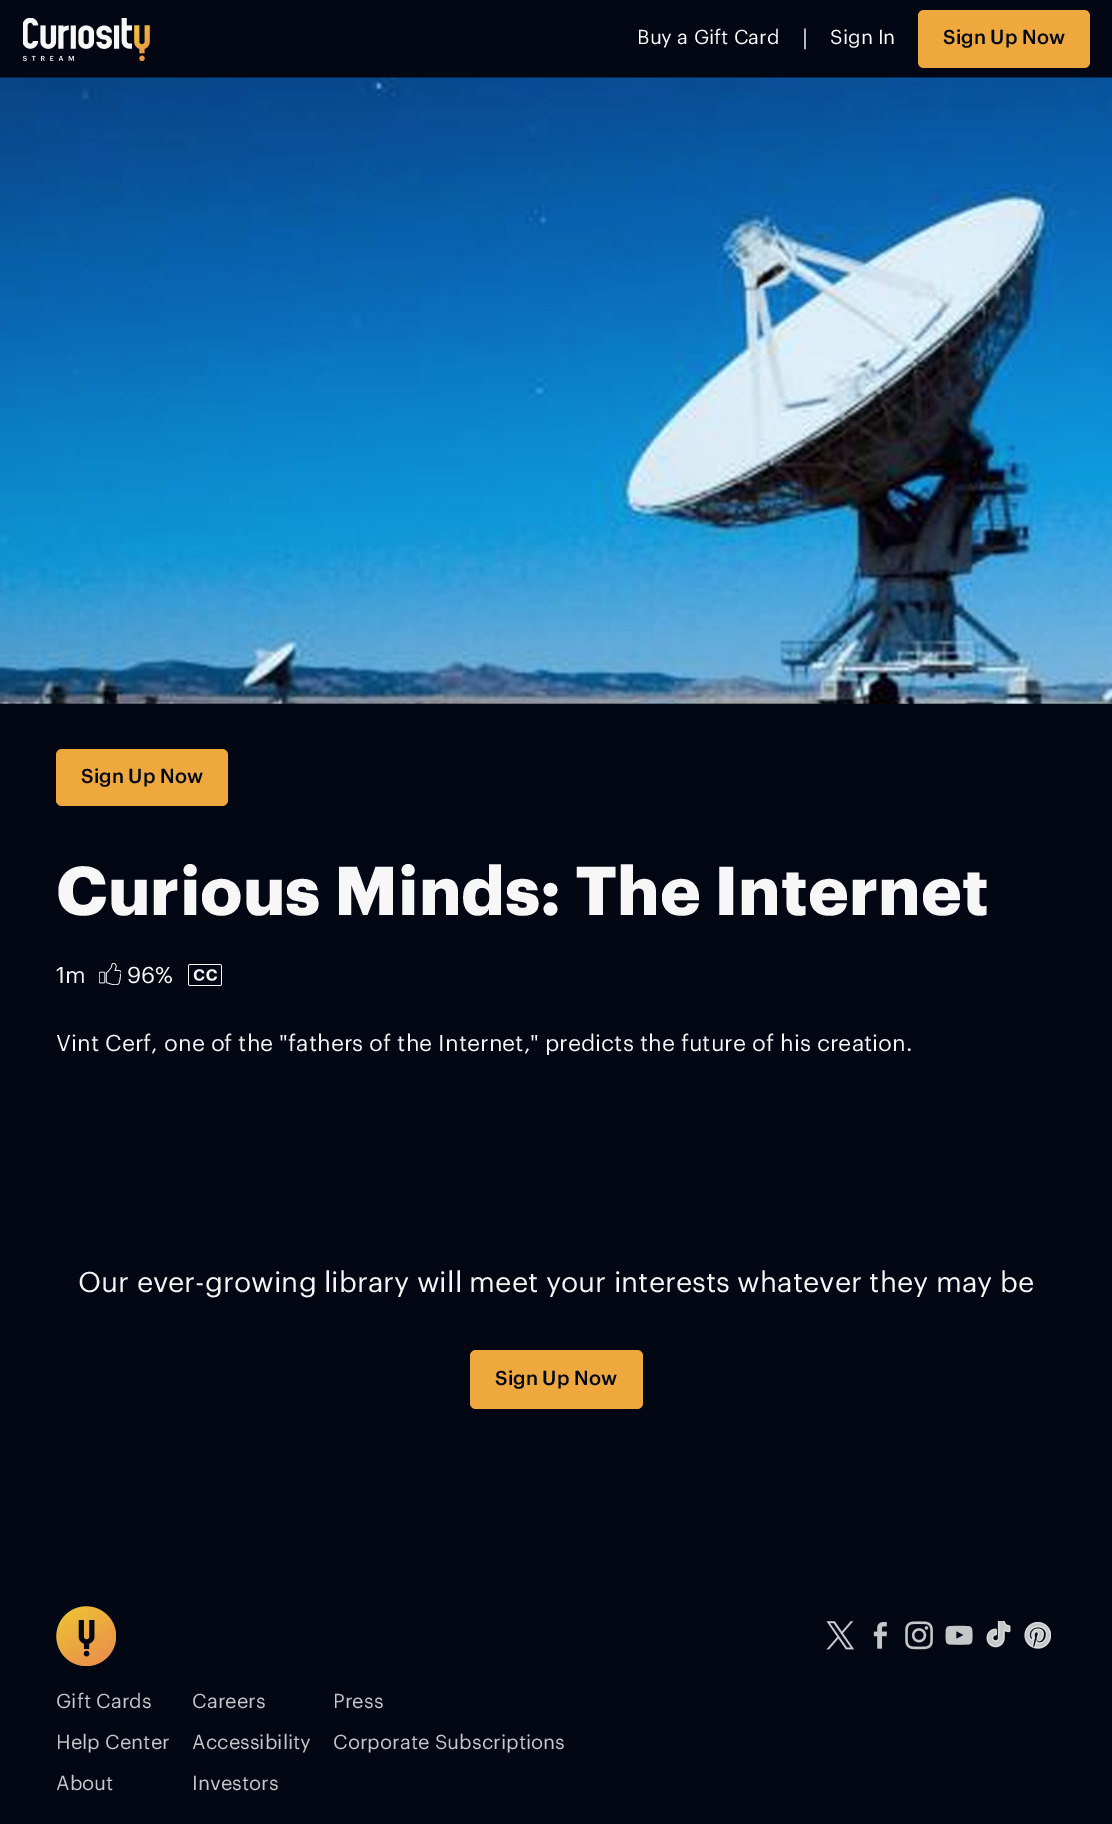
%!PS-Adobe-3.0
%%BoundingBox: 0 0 1112 1824
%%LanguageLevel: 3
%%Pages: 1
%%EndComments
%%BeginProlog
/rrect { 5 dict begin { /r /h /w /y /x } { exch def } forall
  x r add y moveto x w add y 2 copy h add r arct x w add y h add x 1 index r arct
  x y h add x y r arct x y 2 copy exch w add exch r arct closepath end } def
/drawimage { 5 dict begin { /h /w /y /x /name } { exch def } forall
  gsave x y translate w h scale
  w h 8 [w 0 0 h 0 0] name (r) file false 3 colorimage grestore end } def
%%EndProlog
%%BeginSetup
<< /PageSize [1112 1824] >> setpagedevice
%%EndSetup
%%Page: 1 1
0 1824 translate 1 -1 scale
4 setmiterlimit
0.008 0.027 0.075 setrgbcolor
0 0 1112 1824 rectfill
(images/1.raw) 23 18 127 43 drawimage
0.933 0.659 0.239 setrgbcolor
918 10 172 58 6 rrect fill
(images/2.raw) 0 77 1112 627 drawimage
56 749 172 57 6 rrect fill
(images/3.raw) 99 963 22 22 drawimage
(images/4.raw) 188 964 34 22 drawimage
470 1350 173 59 6 rrect fill
(images/5.raw) 56 1606 60 60 drawimage
(images/6.raw) 826 1621 28 29 drawimage
(images/7.raw) 873 1622 14 27 drawimage
(images/8.raw) 905 1621 28 29 drawimage
(images/9.raw) 945 1625 28 20 drawimage
(images/10.raw) 986 1621 25 27 drawimage
(images/11.raw) 1024 1621 27 28 drawimage
/Graphik-Regular [19.75 0 0 -19.75 0 0] selectfont
1 setgray
637 44 moveto (Buy a Gift Card) show
/Graphik-Regular [22.5 0 0 -22.5 0 0] selectfont
0.969 setgray
802 46 moveto (|) show
/Graphik-Regular [19.75 0 0 -19.75 0 0] selectfont
1 setgray
830 44 moveto (Sign In) show
/Graphik-Medium [19.75 0 0 -19.75 0 0] selectfont
0.008 0.027 0.075 setrgbcolor
943 44 moveto (Sign Up Now) show
81 783 moveto (Sign Up Now) show
/Graphik-Bold [67.5 0 0 -67.5 0 0] selectfont
0.969 setgray
56 915 moveto (Curious Minds: The Internet) show
/Graphik-Regular [22.5 0 0 -22.5 0 0] selectfont
56 983 moveto (1m) show
127 983 moveto (96%) show
56 1051 moveto (Vint Cerf, one of the "fathers of the Internet," predicts the future of his creation.) show
/Graphik-Regular [28.1 0 0 -28.1 0 0] selectfont
78 1292 moveto (Our ever-growing library will meet your interests whatever they may be) show
/Graphik-Medium [19.75 0 0 -19.75 0 0] selectfont
0.008 0.027 0.075 setrgbcolor
495 1385 moveto (Sign Up Now) show
/Graphik-Regular [19.75 0 0 -19.75 0 0] selectfont
0.776 0.78 0.788 setrgbcolor
56 1708 moveto (Gift Cards) show
192 1708 moveto (Careers) show
333 1708 moveto (Press) show
56 1749 moveto (Help Center) show
192 1749 moveto (Accessibility) show
333 1749 moveto (Corporate Subscriptions) show
56 1790 moveto (About) show
192 1790 moveto (Investors) show
showpage
%%EOF
